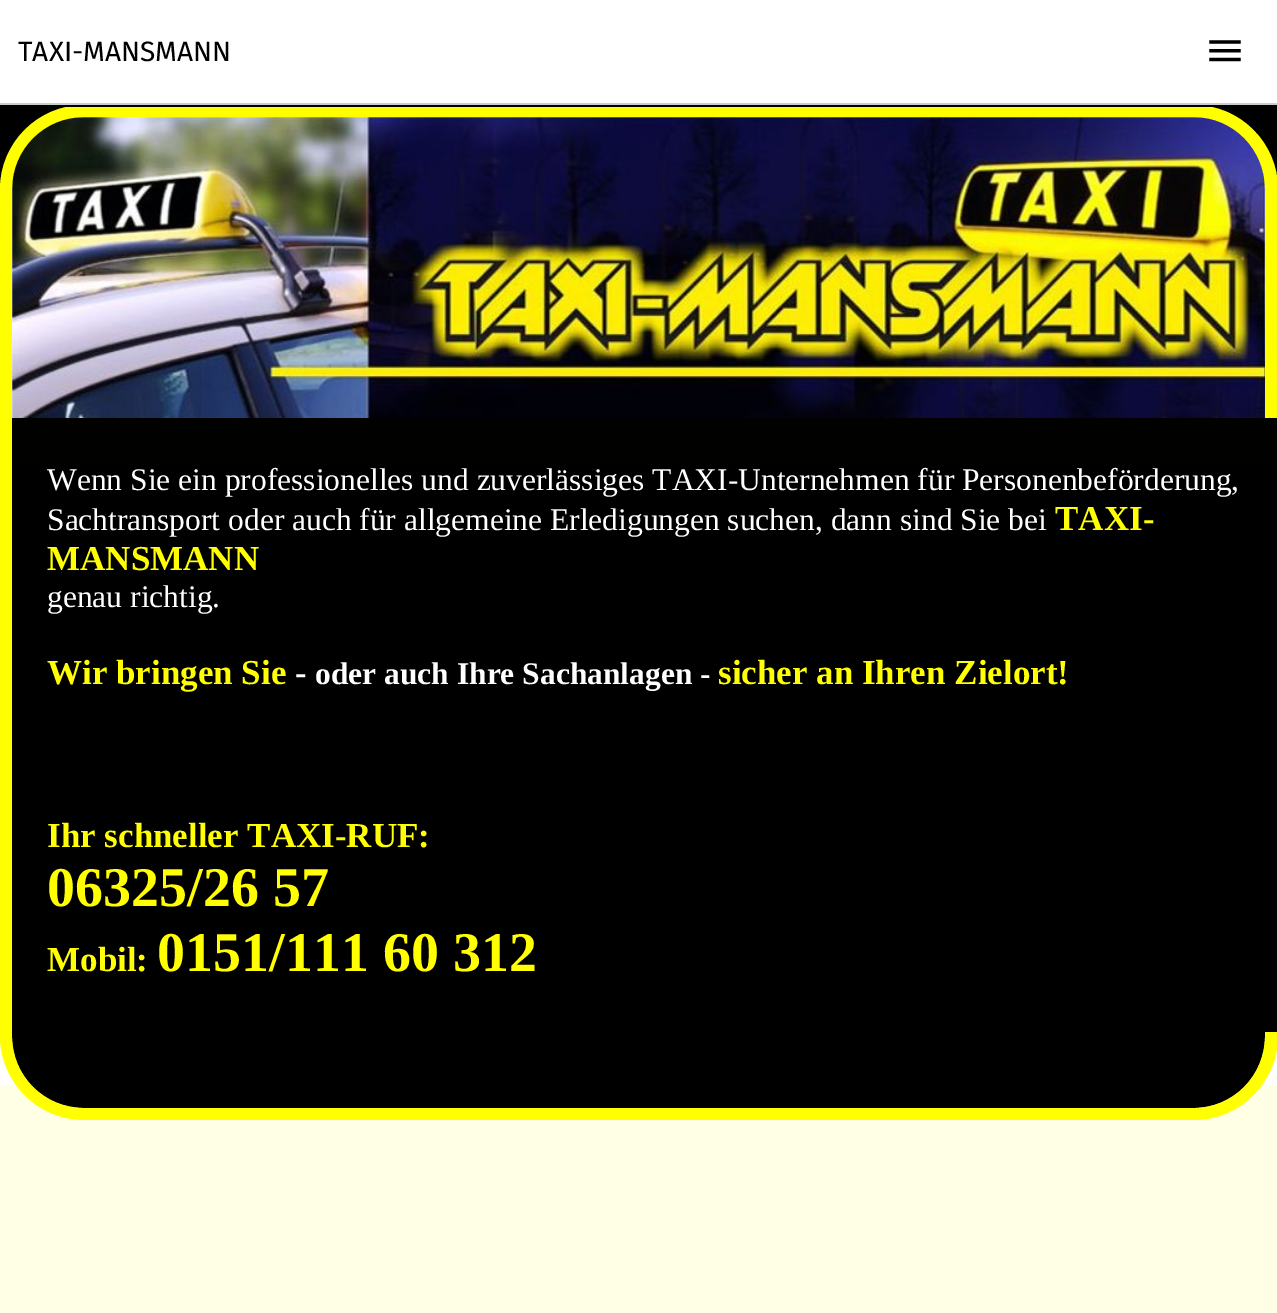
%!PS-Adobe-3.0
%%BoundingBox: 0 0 1277 1313
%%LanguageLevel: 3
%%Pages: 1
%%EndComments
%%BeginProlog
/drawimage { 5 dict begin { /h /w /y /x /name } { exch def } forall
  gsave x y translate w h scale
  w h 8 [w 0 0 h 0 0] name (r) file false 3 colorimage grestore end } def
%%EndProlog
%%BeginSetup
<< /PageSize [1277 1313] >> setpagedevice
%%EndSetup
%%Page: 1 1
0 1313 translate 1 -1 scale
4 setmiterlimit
1 1 0.898 setrgbcolor
0 0 1277 1313 rectfill
(images/1.raw) 0 107 1277 978 drawimage
1 setgray
0 0 1277 103 rectfill
0.8 setgray
0 103 1277 2 rectfill
(images/3.raw) 12 117 1254 301 drawimage
1 1 0 setrgbcolor
newpath 84 105 moveto 1194 105 lineto 1240 105 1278 143 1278 189 curveto 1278 418 lineto 0 418 lineto 0 189 lineto 0 143 38 105 84 105 curveto closepath 84 117 moveto 1194 117 lineto 1233 117 1265 149 1265 189 curveto 1265 418 lineto 12 418 lineto 12 189 lineto 12 149 44 117 84 117 curveto closepath eofill
0 setgray
0 105 1277 2 rectfill
(images/2.raw) 1209 40 32 22 drawimage
12 468 1265 565 rectfill
1 1 0 setrgbcolor
0 418 12 614 rectfill
0 setgray
newpath 12 1033 moveto 1265 1033 lineto 1265 1036 lineto 1265 1076 1233 1108 1193 1108 curveto 84 1108 lineto 44 1108 12 1076 12 1036 curveto closepath fill
1 1 0 setrgbcolor
newpath 0 1032 moveto 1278 1032 lineto 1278 1036 lineto 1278 1082 1240 1120 1194 1120 curveto 84 1120 lineto 38 1120 0 1082 0 1036 curveto closepath 12 1032 moveto 1265 1032 lineto 1265 1036 lineto 1265 1076 1233 1108 1194 1108 curveto 84 1108 lineto 44 1108 12 1076 12 1036 curveto closepath eofill
/FiraSans-Regular [28 0 0 -28 0 0] selectfont
0 setgray
18 61 moveto (TAXI-MANSMANN) show
/LiberationSerif-Regular [31.5 0 0 -31.5 0 0] selectfont
1 setgray
47 490 moveto (Wenn Sie ein professionelles und zuverlässiges TAXI-Unternehmen für Personenbeförderung,) show
47 530 moveto (Sachtransport oder auch für allgemeine Erledigungen suchen, dann sind Sie bei) show
/LiberationSerif-Bold [35 0 0 -35 0 0] selectfont
1 1 0 setrgbcolor
1055 530 moveto (TAXI-) show
47 570 moveto (MANSMANN) show
/LiberationSerif-Regular [31.5 0 0 -31.5 0 0] selectfont
1 setgray
47 607 moveto (genau richtig.) show
/LiberationSerif-Bold [35 0 0 -35 0 0] selectfont
1 1 0 setrgbcolor
47 684 moveto (Wir bringen Sie) show
1 setgray
295 684 moveto (-) show
/LiberationSerif-Bold [31.5 0 0 -31.5 0 0] selectfont
315 684 moveto (oder auch Ihre Sachanlagen -) show
/LiberationSerif-Bold [35 0 0 -35 0 0] selectfont
1 1 0 setrgbcolor
718 684 moveto (sicher an Ihren Zielort!) show
47 847 moveto (Ihr schneller TAXI-RUF:) show
/LiberationSerif-Bold [56 0 0 -56 0 0] selectfont
47 906 moveto (06325/26 57) show
/LiberationSerif-Bold [35 0 0 -35 0 0] selectfont
47 971 moveto (Mobil:) show
/LiberationSerif-Bold [56 0 0 -56 0 0] selectfont
157 971 moveto (0151/111 60 312) show
showpage
%%EOF
